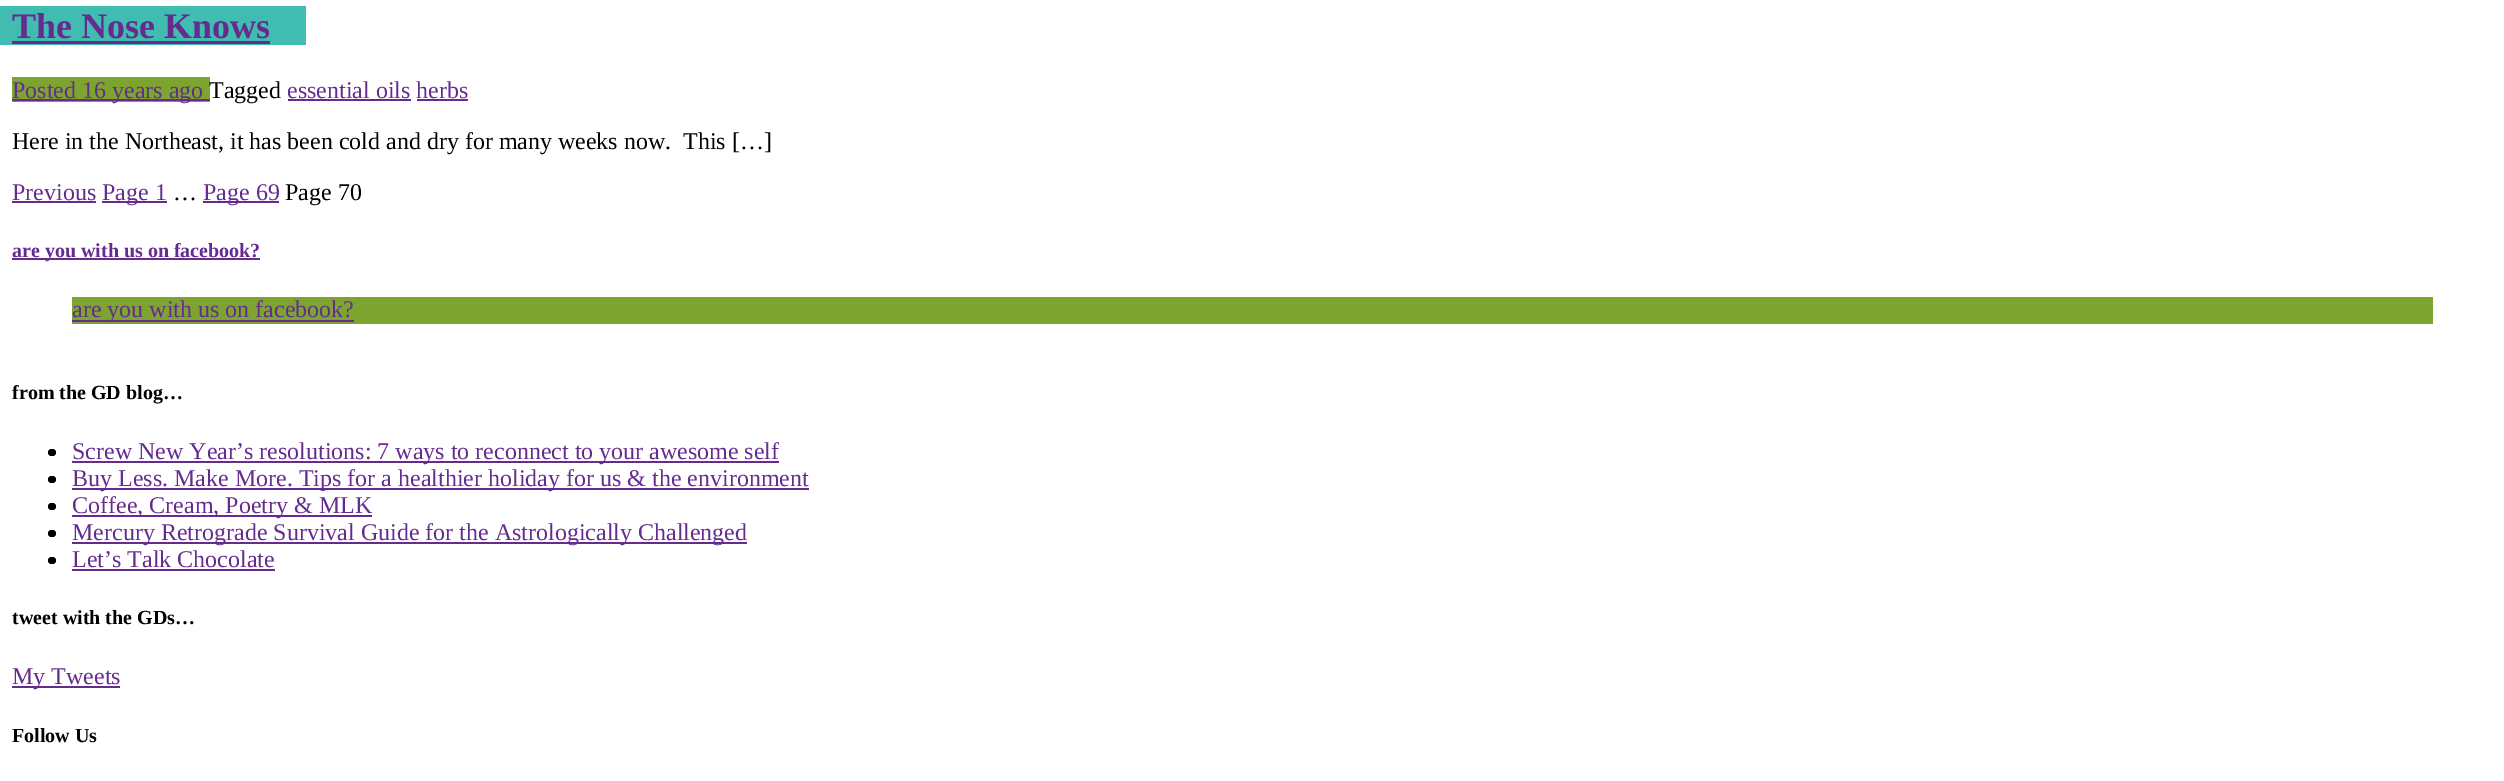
%!PS-Adobe-3.0
%%BoundingBox: 0 0 2504 781
%%LanguageLevel: 3
%%Pages: 1
%%EndComments
%%BeginProlog
/rrect { 5 dict begin { /r /h /w /y /x } { exch def } forall
  x r add y moveto x w add y 2 copy h add r arct x w add y h add x 1 index r arct
  x y h add x y r arct x y 2 copy exch w add exch r arct closepath end } def
%%EndProlog
%%BeginSetup
<< /PageSize [2504 781] >> setpagedevice
%%EndSetup
%%Page: 1 1
0 781 translate 1 -1 scale
4 setmiterlimit
1 setgray
0 0 2504 781 rectfill
0.251 0.737 0.69 setrgbcolor
0 6 12 39 rectfill
12 6 294 39 rectfill
0.396 0.169 0.561 setrgbcolor
12 41 258 3 rectfill
0.49 0.643 0.184 setrgbcolor
12 77 198 25 rectfill
0.396 0.169 0.561 setrgbcolor
12 99 198 2 rectfill
288 99 123 2 rectfill
417 99 51 2 rectfill
12 201 84 2 rectfill
102 201 65 2 rectfill
203 201 76 2 rectfill
12 258 248 2 rectfill
0.49 0.643 0.184 setrgbcolor
72 297 2361 27 rectfill
0.396 0.169 0.561 setrgbcolor
72 320 282 2 rectfill
0 setgray
48 449 8 7 3.5 rrect fill
0.396 0.169 0.561 setrgbcolor
72 461 707 2 rectfill
0 setgray
48 476 8 7 3.5 rrect fill
0.396 0.169 0.561 setrgbcolor
72 488 737 2 rectfill
0 setgray
48 503 8 7 3.5 rrect fill
0.396 0.169 0.561 setrgbcolor
72 515 300 2 rectfill
0 setgray
48 530 8 7 3.5 rrect fill
0.396 0.169 0.561 setrgbcolor
72 542 675 2 rectfill
0 setgray
48 557 8 7 3.5 rrect fill
0.396 0.169 0.561 setrgbcolor
72 569 203 2 rectfill
12 686 108 2 rectfill
/LiberationSerif-Bold [36 0 0 -36 0 0] selectfont
12 38 moveto (The Nose Knows) show
/LiberationSerif-Regular [24 0 0 -24 0 0] selectfont
12 98 moveto (Posted 16 years ago) show
0 setgray
209 98 moveto (Tagged) show
0.396 0.169 0.561 setrgbcolor
287 98 moveto (essential oils herbs) show
0 setgray
12 149 moveto (Here in the Northeast, it has been cold and dry for many weeks now.  This […]) show
0.396 0.169 0.561 setrgbcolor
12 200 moveto (Previous) show
102 200 moveto (Page 1) show
0 setgray
173 200 moveto (…) show
0.396 0.169 0.561 setrgbcolor
203 200 moveto (Page 69) show
0 setgray
285 200 moveto (Page 70) show
/LiberationSerif-Bold [20 0 0 -20 0 0] selectfont
0.396 0.169 0.561 setrgbcolor
12 257 moveto (are you with us on facebook?) show
/LiberationSerif-Regular [24 0 0 -24 0 0] selectfont
72 317 moveto (are you with us on facebook?) show
/LiberationSerif-Bold [20 0 0 -20 0 0] selectfont
0 setgray
12 399 moveto (from the GD blog…) show
/LiberationSerif-Regular [24 0 0 -24 0 0] selectfont
0.396 0.169 0.561 setrgbcolor
72 459 moveto (Screw New Year’s resolutions: 7 ways to reconnect to your awesome self) show
72 486 moveto (Buy Less. Make More. Tips for a healthier holiday for us & the environment) show
72 513 moveto (Coffee, Cream, Poetry & MLK) show
72 540 moveto (Mercury Retrograde Survival Guide for the Astrologically Challenged) show
72 567 moveto (Let’s Talk Chocolate) show
/LiberationSerif-Bold [20 0 0 -20 0 0] selectfont
0 setgray
12 624 moveto (tweet with the GDs…) show
/LiberationSerif-Regular [24 0 0 -24 0 0] selectfont
0.396 0.169 0.561 setrgbcolor
12 684 moveto (My Tweets) show
/LiberationSerif-Bold [20 0 0 -20 0 0] selectfont
0 setgray
12 742 moveto (Follow Us) show
showpage
%%EOF
